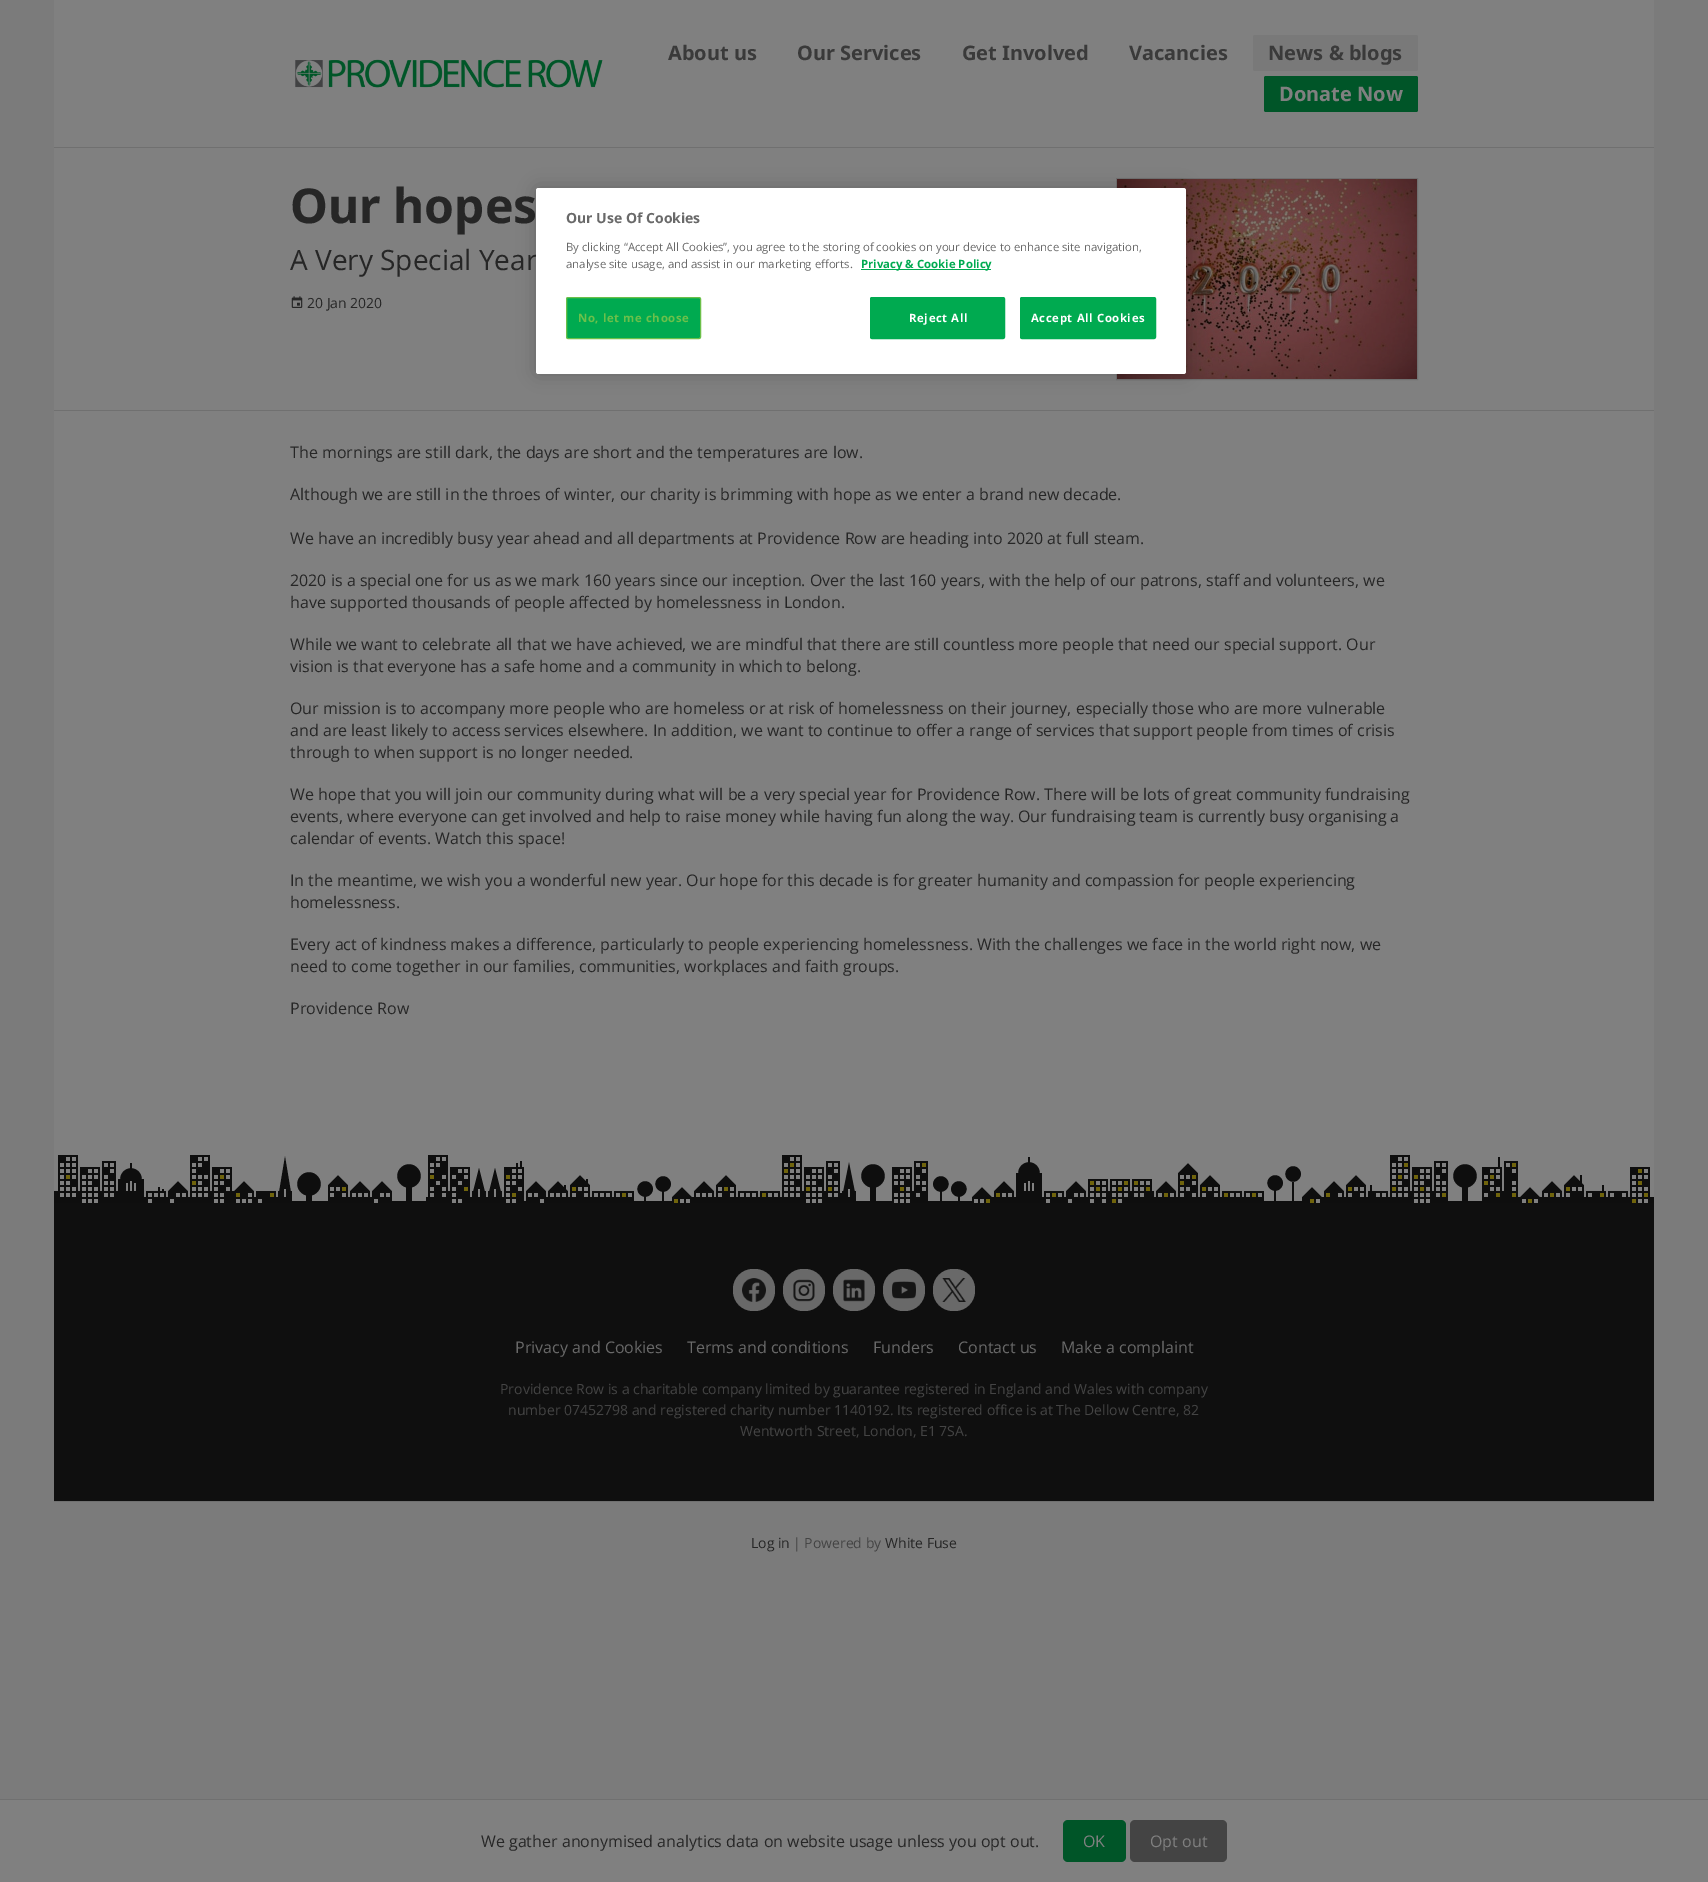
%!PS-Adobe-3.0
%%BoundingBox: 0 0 1708 1882
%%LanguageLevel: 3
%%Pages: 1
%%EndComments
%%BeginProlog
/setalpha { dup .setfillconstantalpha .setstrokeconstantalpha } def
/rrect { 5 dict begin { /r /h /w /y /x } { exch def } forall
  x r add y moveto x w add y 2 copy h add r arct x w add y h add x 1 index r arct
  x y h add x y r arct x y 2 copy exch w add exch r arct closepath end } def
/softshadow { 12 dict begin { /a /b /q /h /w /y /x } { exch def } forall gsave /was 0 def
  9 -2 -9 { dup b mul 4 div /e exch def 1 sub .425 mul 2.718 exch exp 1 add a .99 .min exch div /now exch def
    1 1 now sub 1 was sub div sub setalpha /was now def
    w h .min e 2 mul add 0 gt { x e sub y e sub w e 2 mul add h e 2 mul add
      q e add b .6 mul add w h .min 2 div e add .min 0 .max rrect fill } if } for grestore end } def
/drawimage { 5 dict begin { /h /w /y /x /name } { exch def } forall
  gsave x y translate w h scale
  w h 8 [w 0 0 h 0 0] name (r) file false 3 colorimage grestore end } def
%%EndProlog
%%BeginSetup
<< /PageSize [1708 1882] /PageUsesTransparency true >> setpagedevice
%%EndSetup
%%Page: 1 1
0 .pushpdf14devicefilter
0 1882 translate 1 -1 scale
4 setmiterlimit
0.482 setgray
0 0 1708 1882 rectfill
0.502 setgray
54 0 1600 1149 rectfill
(images/1.raw) 295 59 308 29 drawimage
0.475 setgray
1253 35 165 36 2 rrect fill
0 0.333 0.157 setrgbcolor
1264 76 154 36 2 rrect fill
0.439 setgray
54 147 1600 1 rectfill
54 410 1600 1 rectfill
(images/2.raw) 291 296 12 12 drawimage
1116.5 178.5 301 201 rectstroke
(images/3.raw) 1117 179 300 200 drawimage
54 1501 1600 1 rectfill
0.059 setgray
54 1155 1600 346 rectfill
(images/4.raw) 54 1149 1600 54 drawimage
0.412 setgray
733 1269 42 42 20 rrect fill
(images/5.raw) 742 1278 24 24 drawimage
783 1269 42 42 20 rrect fill
(images/6.raw) 793 1279 22 23 drawimage
833 1269 42 42 20 rrect fill
(images/7.raw) 843 1279 22 23 drawimage
883 1269 42 42 20 rrect fill
(images/8.raw) 892 1281 24 18 drawimage
933 1269 42 42 20 rrect fill
(images/9.raw) 942 1278 24 24 drawimage
0.502 setgray
0 1800 1708 82 rectfill
0.439 setgray
0 1799 1708 1 rectfill
0 0.333 0.157 setrgbcolor
1063 1820 63 42 5 rrect fill
0.267 setgray
1130 1820 97 42 5 rrect fill
0 setgray
536 188 650 186 2.5 9 0.2 softshadow
/NotoSans-Bold [20 0 0 -20 0 0] selectfont
0.227 setgray
668 60 moveto (About us) show
797 60 moveto (Our Services) show
962 60 moveto (Get Involved) show
1129 60 moveto (Vacancies) show
1268 60 moveto (News & blogs) show
0.502 setgray
1279 101 moveto (Donate Now) show
/NotoSans-Bold [48 0 0 -48 0 0] selectfont
0.149 setgray
290 223 moveto (Our hopes) show
/OpenSans-Regular [28 0 0 -28 0 0] selectfont
290 270 moveto (A Very Special Year) show
/OpenSans-Regular [14 0 0 -14 0 0] selectfont
307 308 moveto (20 Jan 2020) show
/OpenSans-Regular [16 0 0 -16 0 0] selectfont
290 458 moveto (The mornings are still dark, the days are short and the temperatures are low.) show
290 500 moveto (Although we are still in the throes of winter, our charity is brimming with hope as we enter a brand new decade.) show
290 544 moveto (We have an incredibly busy year ahead and all departments at Providence Row are heading into 2020 at full steam.) show
290 586 moveto (2020 is a special one for us as we mark 160 years since our inception. Over the last 160 years, with the help of our patrons, staff and volunteers, we) show
290 608 moveto (have supported thousands of people affected by homelessness in London.) show
290 650 moveto (While we want to celebrate all that we have achieved, we are mindful that there are still countless more people that need our special support. Our) show
290 672 moveto (vision is that everyone has a safe home and a community in which to belong.) show
290 714 moveto (Our mission is to accompany more people who are homeless or at risk of homelessness on their journey, especially those who are more vulnerable) show
290 736 moveto (and are least likely to access services elsewhere. In addition, we want to continue to offer a range of services that support people from times of crisis) show
290 758 moveto (through to when support is no longer needed.) show
290 800 moveto (We hope that you will join our community during what will be a very special year for Providence Row. There will be lots of great community fundraising) show
290 822 moveto (events, where everyone can get involved and help to raise money while having fun along the way. Our fundraising team is currently busy organising a) show
290 844 moveto (calendar of events. Watch this space!) show
290 886 moveto (In the meantime, we wish you a wonderful new year. Our hope for this decade is for greater humanity and compassion for people experiencing) show
290 908 moveto (homelessness.) show
290 950 moveto (Every act of kindness makes a difference, particularly to people experiencing homelessness. With the challenges we face in the world right now, we) show
290 972 moveto (need to come together in our families, communities, workplaces and faith groups.) show
290 1014 moveto (Providence Row) show
0.412 setgray
515 1353 moveto (Privacy and Cookies) show
687 1353 moveto (Terms and conditions) show
873 1353 moveto (Funders) show
958 1353 moveto (Contact us) show
1061 1353 moveto (Make a complaint) show
/OpenSans-Regular [14 0 0 -14 0 0] selectfont
0.267 setgray
500 1394 moveto (Providence Row is a charitable company limited by guarantee registered in England and Wales with company) show
508 1415 moveto (number 07452798 and registered charity number 1140192. Its registered office is at The Dellow Centre, 82) show
740 1436 moveto (Wentworth Street, London, E1 7SA.) show
0.149 setgray
751 1548 moveto (Log in) show
0.267 setgray
793 1548 moveto (| Powered by) show
0.149 setgray
885 1548 moveto (White Fuse) show
/OpenSans-Regular [16 0 0 -16 0 0] selectfont
481 1847 moveto (We gather anonymised analytics data on website usage unless you opt out.) show
0.502 setgray
1083 1847 moveto (OK) show
1150 1847 moveto (Opt out) show
1 setgray
536 188 650 186 2.5 rrect fill
/OpenSans-Bold [14 0 0 -14 0 0] selectfont
0.412 setgray
566 223 moveto (Our Use Of Cookies) show
/OpenSans-Regular [11.38 0 0 -11.38 0 0] selectfont
566 251 moveto (By clicking “Accept All Cookies”, you agree to the storing of cookies on your device to enhance site navigation,) show
566 268 moveto (analyse site usage, and assist in our marketing efforts.) show
0 0.667 0.314 setrgbcolor
861 269 130 1 rectfill
/OpenSans-Bold [11.38 0 0 -11.38 0 0] selectfont
861 268 moveto (Privacy & Cookie Policy) show
566.5 297.5 134 41 1.5 rrect gsave fill grestore
0.424 0.753 0.29 setrgbcolor
stroke
578 322 moveto 0.6 0 (No, let me choose) ashow
0 0.667 0.314 setrgbcolor
870.5 297.5 134 41 1.5 rrect gsave fill grestore
stroke
1 setgray
909 322 moveto 0.6 0 (Reject All) ashow
0 0.667 0.314 setrgbcolor
1020.5 297.5 135 41 1.5 rrect gsave fill grestore
stroke
1 setgray
1031 322 moveto 0.6 0 (Accept All Cookies) ashow
.poppdf14devicefilter showpage
%%EOF
